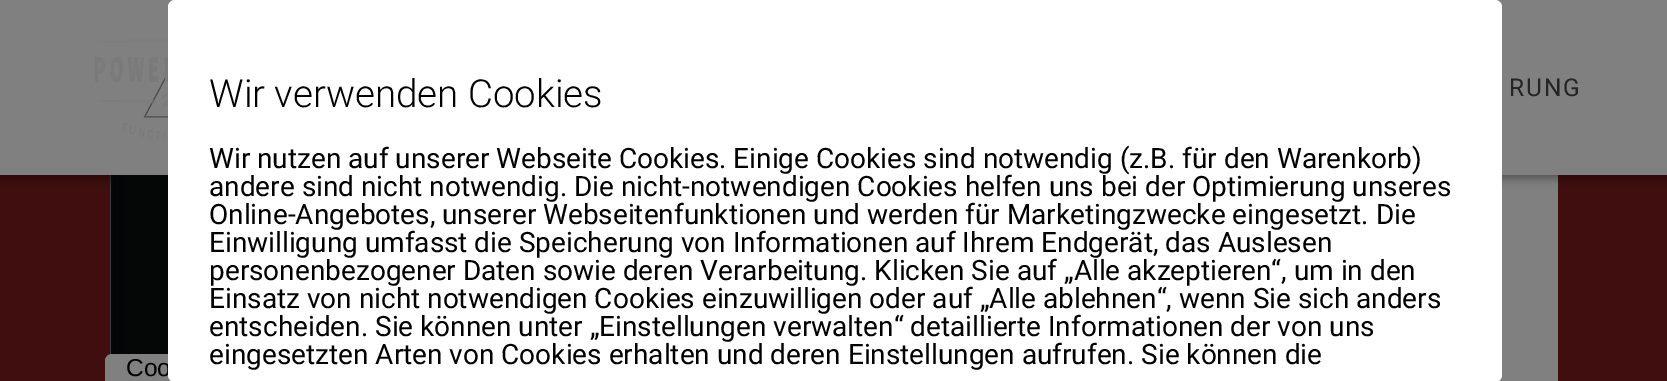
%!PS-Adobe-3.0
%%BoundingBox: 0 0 1667 381
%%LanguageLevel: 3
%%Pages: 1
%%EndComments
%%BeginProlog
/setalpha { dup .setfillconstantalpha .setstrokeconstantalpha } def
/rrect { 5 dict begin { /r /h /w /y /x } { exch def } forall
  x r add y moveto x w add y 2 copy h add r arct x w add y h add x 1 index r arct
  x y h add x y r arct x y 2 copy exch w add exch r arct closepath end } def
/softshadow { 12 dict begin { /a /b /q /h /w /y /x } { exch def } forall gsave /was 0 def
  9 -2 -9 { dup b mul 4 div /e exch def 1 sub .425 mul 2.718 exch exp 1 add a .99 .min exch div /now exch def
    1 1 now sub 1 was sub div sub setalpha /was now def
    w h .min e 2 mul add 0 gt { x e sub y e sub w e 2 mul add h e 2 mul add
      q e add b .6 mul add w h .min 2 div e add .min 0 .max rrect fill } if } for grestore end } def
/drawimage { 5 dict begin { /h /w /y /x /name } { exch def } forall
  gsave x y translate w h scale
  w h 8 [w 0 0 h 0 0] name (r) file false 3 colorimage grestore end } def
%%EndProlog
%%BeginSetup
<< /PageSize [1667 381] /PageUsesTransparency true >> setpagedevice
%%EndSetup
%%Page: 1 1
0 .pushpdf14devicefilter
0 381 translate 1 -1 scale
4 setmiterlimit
0.251 0.055 0.055 setrgbcolor
0 0 1667 381 rectfill
0.502 setgray
110 175 1448 206 rectfill
(images/2.raw) 110 175 58 180 drawimage
0 setgray
-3 -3 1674 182 0 4.5 0.33 softshadow
0.502 setgray
0 0 1667 175 rectfill
(images/1.raw) 95 39 73 102 drawimage
newpath 112 354 moveto 229 354 lineto 233 354 236 357 236 361 curveto 236 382 lineto 105 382 lineto 105 361 lineto 105 357 108 354 112 354 curveto closepath fill
/Roboto-Regular [24.5 0 0 -24.5 0 0] selectfont
0.145 setgray
1509 96 moveto 2 0 (RUNG) ashow
/LiberationSans-Regular [24.5 0 0 -24.5 0 0] selectfont
0 setgray
126 376 moveto (Coo) show
1 setgray
168 0 1334 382 7 rrect fill
/Roboto-Regular [28 0 0 -28 0 0] selectfont
0 setgray
209 364 moveto (eingesetzten Arten von Cookies erhalten und deren Einstellungen aufrufen. Sie können die) show
209 336 moveto (entscheiden. Sie können unter „Einstellungen verwalten“ detaillierte Informationen der von uns) show
209 308 moveto (Einsatz von nicht notwendigen Cookies einzuwilligen oder auf „Alle ablehnen“, wenn Sie sich anders) show
209 280 moveto (personenbezogener Daten sowie deren Verarbeitung. Klicken Sie auf „Alle akzeptieren“, um in den) show
209 252 moveto (Einwilligung umfasst die Speicherung von Informationen auf Ihrem Endgerät, das Auslesen) show
209 224 moveto (Online-Angebotes, unserer Webseitenfunktionen und werden für Marketingzwecke eingesetzt. Die) show
209 196 moveto (andere sind nicht notwendig. Die nicht-notwendigen Cookies helfen uns bei der Optimierung unseres) show
209 168 moveto (Wir nutzen auf unserer Webseite Cookies. Einige Cookies sind notwendig \(z.B. für den Warenkorb\)) show
/Roboto-Light [38.5 0 0 -38.5 0 0] selectfont
209 107 moveto (Wir verwenden Cookies) show
.poppdf14devicefilter showpage
%%EOF
